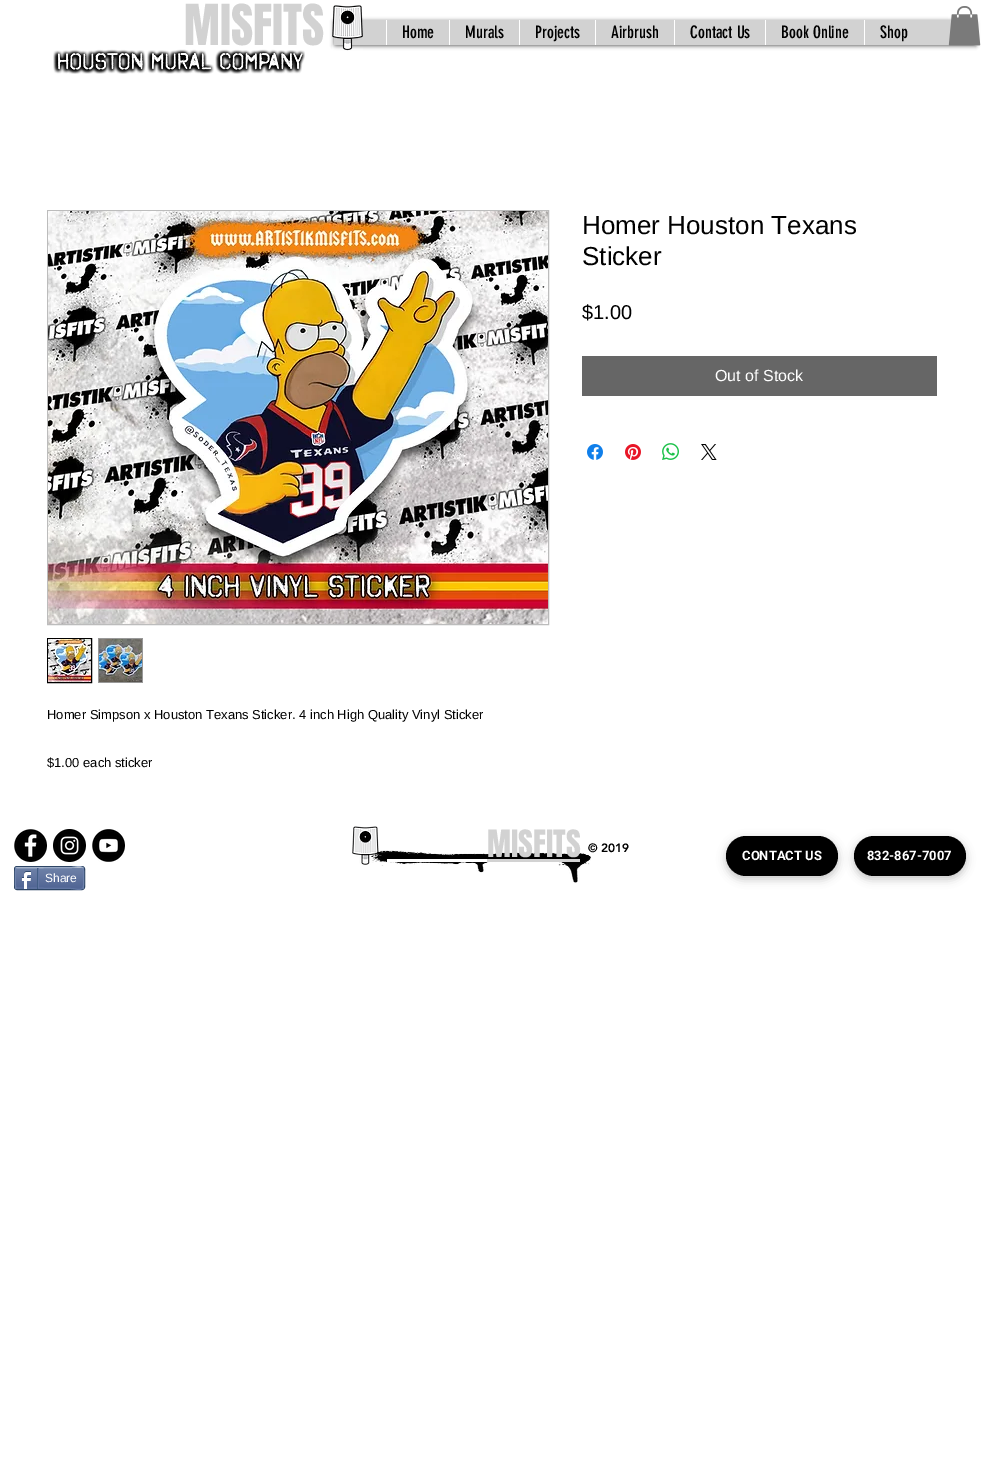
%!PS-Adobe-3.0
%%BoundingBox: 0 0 983 1459
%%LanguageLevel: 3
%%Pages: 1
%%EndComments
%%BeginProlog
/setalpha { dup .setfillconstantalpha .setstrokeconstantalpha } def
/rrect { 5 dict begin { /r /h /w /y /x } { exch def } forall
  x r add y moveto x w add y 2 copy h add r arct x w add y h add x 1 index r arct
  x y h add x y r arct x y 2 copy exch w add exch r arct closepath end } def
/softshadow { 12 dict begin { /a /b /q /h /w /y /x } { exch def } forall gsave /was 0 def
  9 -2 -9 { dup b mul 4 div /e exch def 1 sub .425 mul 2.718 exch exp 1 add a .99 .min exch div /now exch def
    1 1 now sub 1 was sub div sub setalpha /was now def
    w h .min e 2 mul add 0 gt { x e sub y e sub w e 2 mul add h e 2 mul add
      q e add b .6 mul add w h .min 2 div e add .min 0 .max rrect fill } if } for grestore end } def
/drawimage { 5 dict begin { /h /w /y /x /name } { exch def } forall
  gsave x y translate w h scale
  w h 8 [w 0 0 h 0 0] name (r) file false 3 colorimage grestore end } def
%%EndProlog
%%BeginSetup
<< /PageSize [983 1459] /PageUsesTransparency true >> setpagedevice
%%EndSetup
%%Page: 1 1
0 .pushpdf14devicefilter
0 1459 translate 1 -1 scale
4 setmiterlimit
1 setgray
0 0 983 1459 rectfill
0 setgray
334 21 642 25 0 2 0.6 softshadow
0.824 setgray
334 20 618 25 rectfill
(images/1.raw) 332 5 31 46 drawimage
1 setgray
386 20 1 25 rectfill
449 20 1 25 rectfill
519 20 1 25 rectfill
595 20 1 25 rectfill
674 20 1 25 rectfill
765 20 1 25 rectfill
864 20 1 25 rectfill
(images/2.raw) 948 6 33 40 drawimage
(images/3.raw) 53 49 252 25 drawimage
0.4 setgray
582 356 355 40 rectfill
(images/4.raw) 587 444 16 16 drawimage
(images/5.raw) 625 444 16 16 drawimage
(images/6.raw) 662 443 17 17 drawimage
(images/7.raw) 701 444 16 16 drawimage
0.737 setgray
47.5 210.5 501 414 rectstroke
(images/8.raw) 48 211 500 413 drawimage
0 setgray
47.5 638.5 44 44 rectstroke
(images/9.raw) 48 639 43 43 drawimage
0.6 setgray
98 638 45 45 rectfill
(images/10.raw) 99 639 43 43 drawimage
(images/11.raw) 14 829 33 33 drawimage
(images/12.raw) 53 829 33 33 drawimage
(images/13.raw) 92 829 33 33 drawimage
(images/14.raw) 352 826 27 39 drawimage
(images/15.raw) 367 850 224 33 drawimage
1 setgray
387 859 100 3 rectfill
0.824 setgray
487 859 93 3 rectfill
0 setgray
726 839 112 40 20 4.5 0.23 softshadow
726 836 112 40 20 rrect fill
854 839 112 40 20 4.5 0.23 softshadow
854 836 112 40 20 rrect fill
0.176 0.271 0.396 setrgbcolor
14.5 866.5 70 23 2.5 rrect stroke
(images/16.raw) 15 868 69 21 drawimage
0.604 0.671 0.776 setrgbcolor
newpath 16 868 moveto 71 867.5 lineto 75 867.5 80 865 83 868 curveto stroke
0.435 0.514 0.678 setrgbcolor
newpath 83 868 moveto 84 868.5 84 887.5 83 888 curveto stroke
0.38 0.463 0.639 setrgbcolor
newpath 83 888 moveto 80 891 75 888.5 71 888.5 curveto 16 888 lineto stroke
0.435 0.514 0.678 setrgbcolor
newpath 16 888 moveto 15 887.5 15 868.5 16 868 curveto stroke
(images/17.raw) 21 871 10 18 drawimage
0.259 0.369 0.522 setrgbcolor
37 868 1 21 rectfill
0.38 0.463 0.639 setrgbcolor
38 868 1 20 rectfill
/Anton-Regular [48 0 0 -48 0 0] selectfont
0.824 setgray
184 45 moveto (MISFITS) show
/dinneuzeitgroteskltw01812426-Regular [17 0 0 -17 0 0] selectfont
0 setgray
402 38 moveto (Home) show
465 38 moveto (Murals) show
535 38 moveto (Projects) show
611 38 moveto (Airbrush) show
690 38 moveto (Contact Us) show
781 38 moveto (Book Online) show
880 38 moveto (Shop) show
/LiberationSans-Regular [26 0 0 -26 0 0] selectfont
582 234 moveto (Homer Houston Texans) show
582 265 moveto (Sticker) show
/LiberationSans-Regular [20 0 0 -20 0 0] selectfont
582 319 moveto ($1.00) show
/LiberationSans-Regular [16 0 0 -16 0 0] selectfont
1 setgray
715 381 moveto (Out of Stock) show
/LiberationSans-Regular [13 0 0 -13 0 0] selectfont
0 setgray
47 719 moveto (Homer Simpson x Houston Texans Sticker. 4 inch High Quality Vinyl Sticker) show
47 767 moveto ($1.00 each sticker) show
/Anton-Regular [32 0 0 -32 0 0] selectfont
0.824 setgray
487 857 moveto (MISFITS) show
/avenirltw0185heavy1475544-Black [12 0 0 -12 0 0] selectfont
0 setgray
588 852 moveto (© 2019) show
/Roboto-Bold [13 0 0 -13 0 0] selectfont
1 setgray
742 860 moveto (CONTACT US) show
867 860 moveto (832-867-7007) show
/LiberationSans-Regular [12 0 0 -12 0 0] selectfont
45 882 moveto (Share) show
.poppdf14devicefilter showpage
%%EOF
